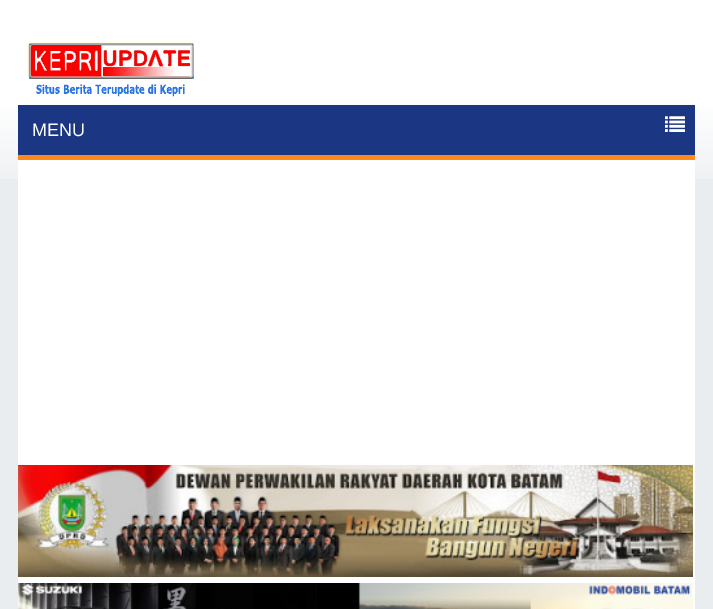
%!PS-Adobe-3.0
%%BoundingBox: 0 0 713 609
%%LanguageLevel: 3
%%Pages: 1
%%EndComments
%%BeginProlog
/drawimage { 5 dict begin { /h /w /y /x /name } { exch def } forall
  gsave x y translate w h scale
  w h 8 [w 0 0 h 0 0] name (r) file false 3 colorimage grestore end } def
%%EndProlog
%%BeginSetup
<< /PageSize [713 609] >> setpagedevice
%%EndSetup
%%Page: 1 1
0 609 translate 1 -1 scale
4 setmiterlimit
0.918 0.929 0.941 setrgbcolor
0 0 713 609 rectfill
(images/1.raw) 0 0 713 179 drawimage
1 setgray
18 112 677 497 rectfill
(images/2.raw) 27 42 167 55 drawimage
0.106 0.212 0.51 setrgbcolor
18 105 677 50 rectfill
0.996 0.537 0.09 setrgbcolor
18 155 677 5 rectfill
(images/3.raw) 665 116 20 16 drawimage
(images/4.raw) 18 465 675 112 drawimage
(images/5.raw) 18 583 675 26 drawimage
/LiberationSans-Regular [18 0 0 -18 0 0] selectfont
1 setgray
32 136 moveto (MENU) show
showpage
%%EOF
